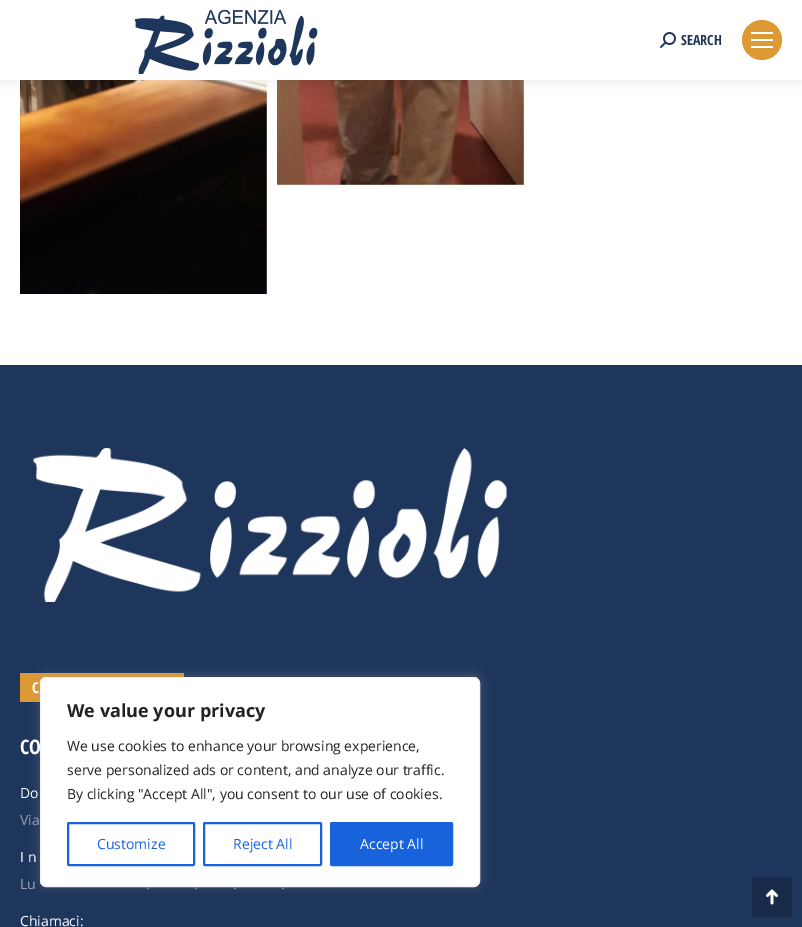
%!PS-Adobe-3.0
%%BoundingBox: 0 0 802 927
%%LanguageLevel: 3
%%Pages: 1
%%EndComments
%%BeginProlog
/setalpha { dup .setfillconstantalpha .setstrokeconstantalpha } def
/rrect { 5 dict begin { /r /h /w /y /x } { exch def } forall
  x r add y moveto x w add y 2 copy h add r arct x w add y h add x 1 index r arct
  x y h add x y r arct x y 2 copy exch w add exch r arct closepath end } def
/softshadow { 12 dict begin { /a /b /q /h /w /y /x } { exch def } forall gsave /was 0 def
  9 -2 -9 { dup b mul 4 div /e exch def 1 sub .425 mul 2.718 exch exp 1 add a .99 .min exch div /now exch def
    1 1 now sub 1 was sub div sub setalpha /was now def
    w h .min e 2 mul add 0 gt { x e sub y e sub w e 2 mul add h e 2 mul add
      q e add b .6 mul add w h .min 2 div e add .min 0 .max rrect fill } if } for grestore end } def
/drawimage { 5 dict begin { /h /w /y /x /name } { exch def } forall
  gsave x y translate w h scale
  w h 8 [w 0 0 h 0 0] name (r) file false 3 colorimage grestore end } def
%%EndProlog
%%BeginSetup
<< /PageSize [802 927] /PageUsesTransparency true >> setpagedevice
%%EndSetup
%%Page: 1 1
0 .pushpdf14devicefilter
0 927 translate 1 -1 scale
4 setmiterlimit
1 setgray
0 0 802 927 rectfill
(images/3.raw) 20 80 247 214 drawimage
(images/4.raw) 277 80 247 105 drawimage
0 setgray
-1 -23 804 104 0 7.5 0.07 softshadow
1 setgray
0 0 802 80 rectfill
(images/1.raw) 134 10 184 64 drawimage
(images/2.raw) 660 32 16 16 drawimage
0.867 0.6 0.2 setrgbcolor
newpath 762 40 20 0 360 arc closepath fill
1 setgray
751 32 22 2 rectfill
751 39 22 2 rectfill
751 46 22 2 rectfill
0.122 0.212 0.361 setrgbcolor
0 365 802 562 rectfill
(images/5.raw) 33 448 474 154 drawimage
0.867 0.6 0.2 setrgbcolor
20 673 164 29 rectfill
0.098 0.169 0.29 setrgbcolor
752 877 40 40 rectfill
(images/6.raw) 766 889 12 16 drawimage
0.675 0.671 0.671 setrgbcolor
40 676 440 210 6 5 0.3 softshadow
1 setgray
40.5 677.5 439 209 5.5 rrect gsave fill grestore
0.957 setgray
stroke
0.094 0.388 0.863 setrgbcolor
2 setlinewidth
68 823 126 42 1 rrect stroke
204 823 117 42 1 rrect stroke
331 823 121 42 1 rrect gsave fill grestore
stroke
/OpenSansCondensed-Bold [14 0 0 -14 0 0] selectfont
0.122 0.212 0.361 setrgbcolor
681 45 moveto (SEARCH) show
/OpenSansCondensed-Bold [15 0 0 -15 0 0] selectfont
1 setgray
32 693 moveto (C) show
/OpenSansCondensed-Bold [20 0 0 -20 0 0] selectfont
20 754 moveto (CO) show
/OpenSans-Regular [14 0 0 -14 0 0] selectfont
20 798 moveto (Do) show
0.58 0.624 0.698 setrgbcolor
20 825 moveto (Via) show
1 setgray
20 862 moveto (I n) show
0.58 0.624 0.698 setrgbcolor
20 889 moveto (Lu) show
146 889 moveto (.) show
194 889 moveto (.) show
233 889 moveto (.) show
281 889 moveto (.) show
1 setgray
20 926 moveto (Chiamaci:) show
/OpenSans-Bold [18 0 0 -18 0 0] selectfont
0.129 setgray
67 717 moveto (We value your privacy) show
/OpenSans-Regular [14 0 0 -14 0 0] selectfont
67 751 moveto (We use cookies to enhance your browsing experience,) show
67 775 moveto (serve personalized ads or content, and analyze our traffic.) show
67 799 moveto (By clicking "Accept All", you consent to our use of cookies.) show
0.094 0.388 0.863 setrgbcolor
97 849 moveto (Customize) show
233 849 moveto (Reject All) show
1 setgray
360 849 moveto (Accept All) show
.poppdf14devicefilter showpage
%%EOF
